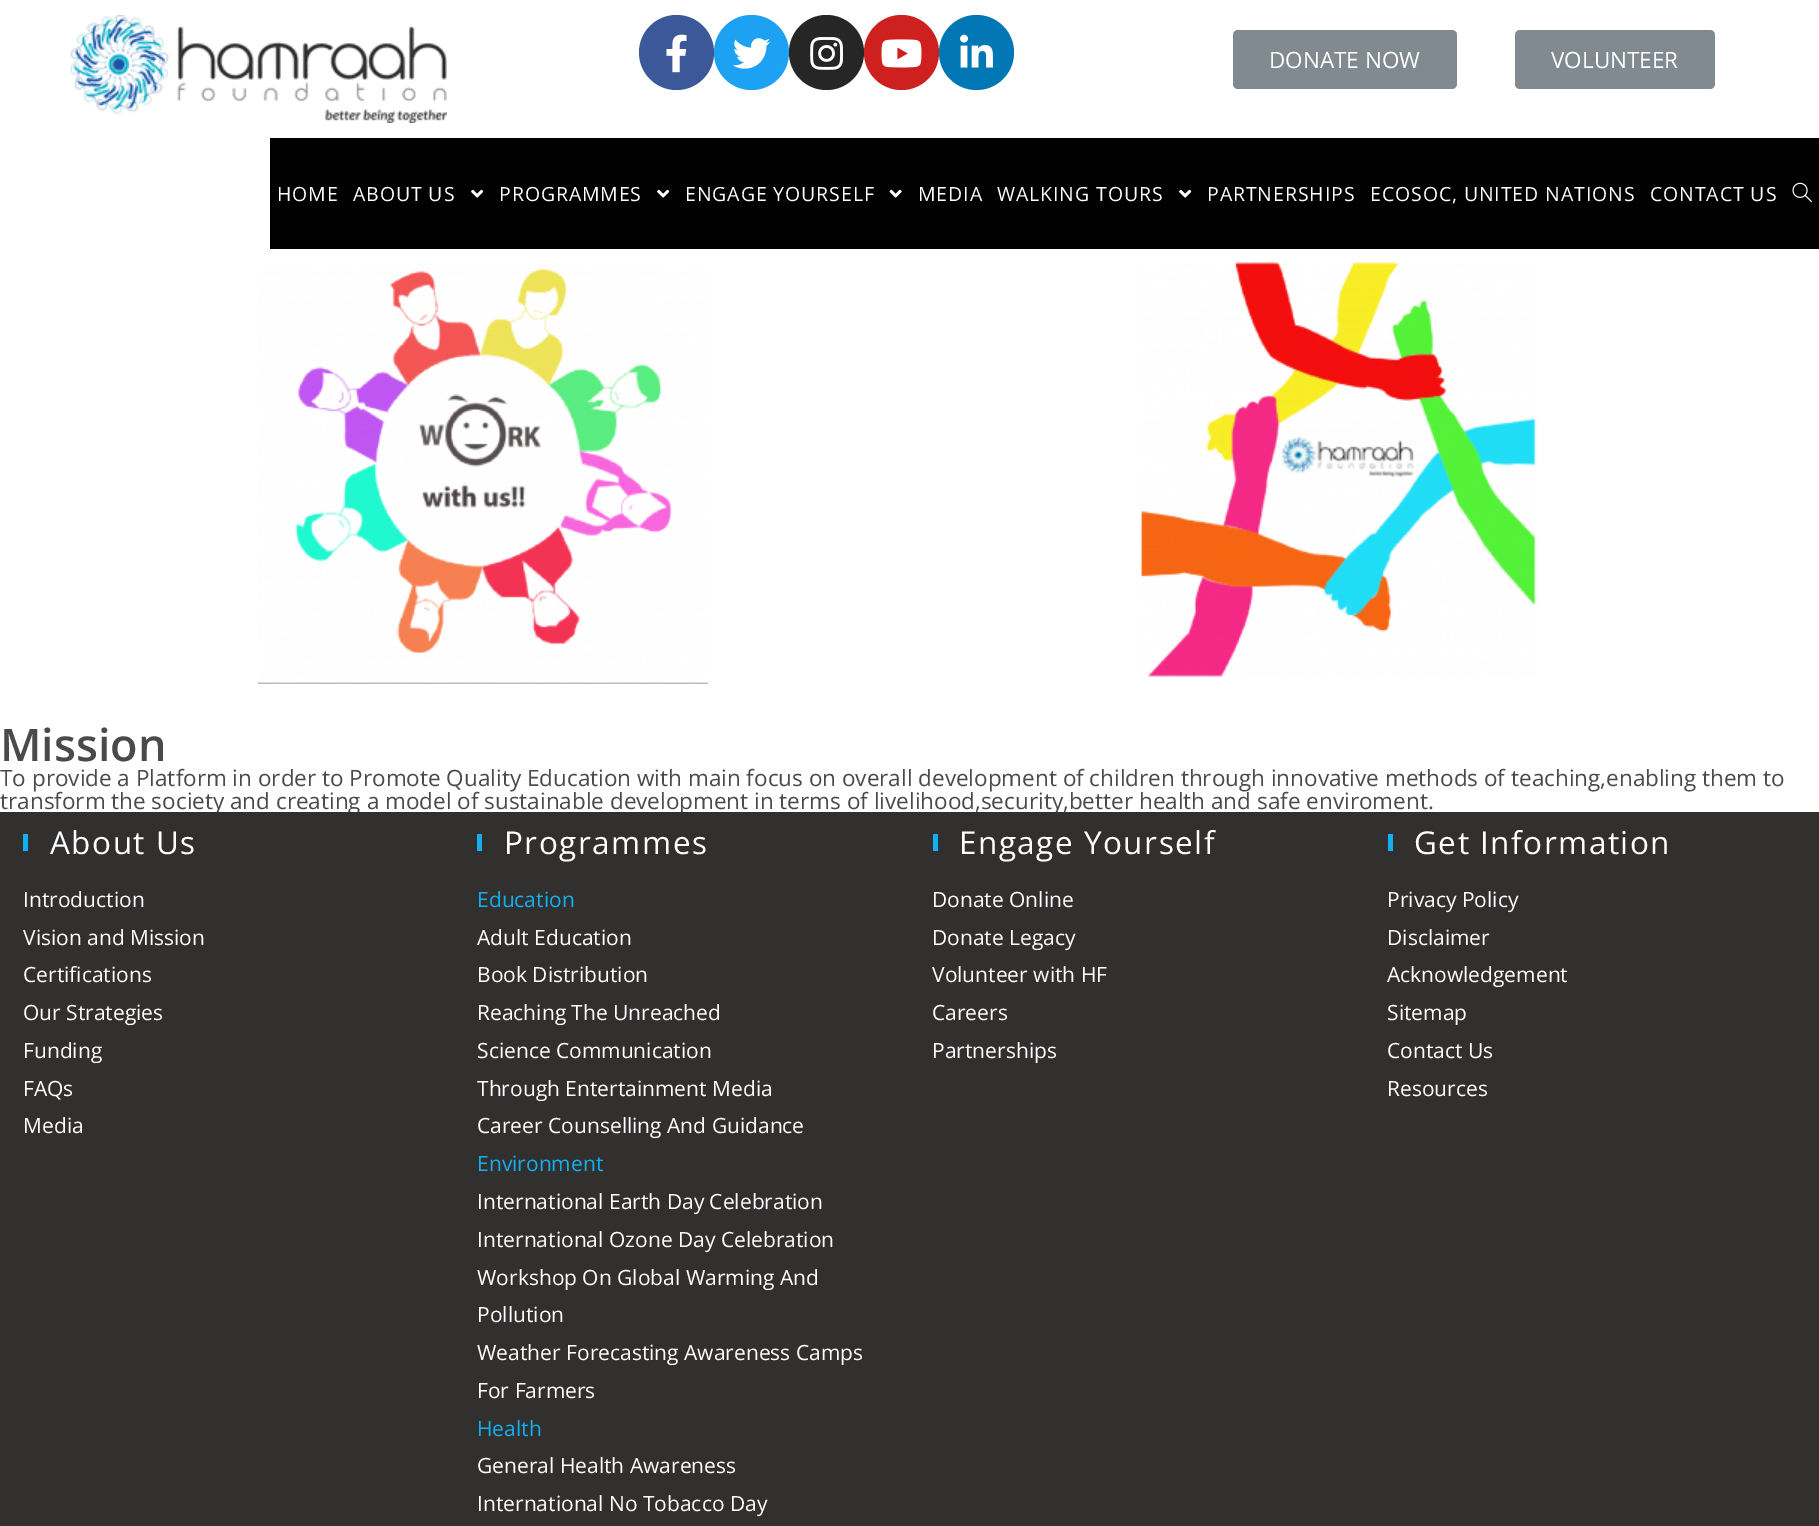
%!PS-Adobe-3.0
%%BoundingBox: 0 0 1819 1526
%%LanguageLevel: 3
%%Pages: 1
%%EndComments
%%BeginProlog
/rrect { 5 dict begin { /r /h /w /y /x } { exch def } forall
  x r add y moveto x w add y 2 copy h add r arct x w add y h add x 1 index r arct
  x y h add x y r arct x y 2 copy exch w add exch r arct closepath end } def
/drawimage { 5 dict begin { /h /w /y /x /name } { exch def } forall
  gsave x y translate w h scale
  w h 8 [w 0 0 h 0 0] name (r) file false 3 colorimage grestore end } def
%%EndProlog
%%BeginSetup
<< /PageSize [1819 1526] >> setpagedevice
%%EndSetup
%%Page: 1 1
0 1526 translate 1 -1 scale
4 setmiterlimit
1 setgray
0 0 1819 1526 rectfill
(images/1.raw) 70 15 377 108 drawimage
0.231 0.349 0.596 setrgbcolor
newpath 676.5 52.5 37.5 0 360 arc closepath fill
(images/2.raw) 666 34 21 39 drawimage
0.114 0.631 0.949 setrgbcolor
newpath 751.5 52.5 37.5 0 360 arc closepath fill
(images/3.raw) 733 38 38 31 drawimage
0.149 setgray
newpath 826.5 52.5 37.5 0 360 arc closepath fill
(images/4.raw) 810 37 33 33 drawimage
0.804 0.125 0.122 setrgbcolor
newpath 901.5 52.5 37.5 0 360 arc closepath fill
(images/5.raw) 881 39 41 29 drawimage
0 0.467 0.71 setrgbcolor
newpath 976.5 52.5 37.5 0 360 arc closepath fill
(images/6.raw) 960 34 33 34 drawimage
0.506 0.541 0.569 setrgbcolor
1233 30 224 59 5 rrect fill
1515 30 200 59 5 rrect fill
0 setgray
270 138 1549 111 rectfill
(images/7.raw) 471 189 13 9 drawimage
(images/7.raw) 657 189 13 9 drawimage
(images/8.raw) 889 189 13 9 drawimage
(images/7.raw) 1179 189 13 9 drawimage
(images/9.raw) 1792 182 20 21 drawimage
(images/10.raw) 258 268 450 416 drawimage
(images/11.raw) 1141 262 396 415 drawimage
/OpenSans-Regular [22.5 0 0 -22.5 0 0] selectfont
1 setgray
1269 68 moveto (DONATE NOW) show
1551 68 moveto (VOLUNTEER) show
/OpenSans-Regular [19.5 0 0 -19.5 0 0] selectfont
277 201 moveto 0.9 0 (HOME) ashow
353 201 moveto 0.9 0 (ABOUT US) ashow
499 201 moveto 0.9 0 (PROGRAMMES) ashow
685 201 moveto 0.9 0 (ENGAGE YOURSELF) ashow
918 201 moveto 0.9 0 (MEDIA) ashow
997 201 moveto 0.9 0 (WALKING TOURS) ashow
1207 201 moveto 0.9 0 (PARTNERSHIPS) ashow
1370 201 moveto 0.9 0 (ECOSOC, UNITED NATIONS) ashow
1650 201 moveto 0.9 0 (CONTACT US) ashow
/OpenSans-SemiBold [45 0 0 -45 0 0] selectfont
0.29 setgray
0 761 moveto (Mission) show
/OpenSans-Regular [22.5 0 0 -22.5 0 0] selectfont
0 786 moveto (To provide a Platform in order to Promote Quality Education with main focus on overall development of children through innovative methods of teaching,enabling them to) show
0 809 moveto (transform the society and creating a model of sustainable development in terms of livelihood,security,better health and safe enviroment.) show
0.196 0.188 0.184 setrgbcolor
0 812 1819 714 rectfill
0.075 0.686 0.941 setrgbcolor
23 834 5 17 rectfill
/OpenSans-Regular [31.5 0 0 -31.5 0 0] selectfont
1 setgray
50 854 moveto 1.5 0 (About Us) ashow
/OpenSans-Regular [21 0 0 -21 0 0] selectfont
23 907 moveto (Introduction) show
23 945 moveto (Vision and Mission) show
23 982 moveto (Certifications) show
23 1020 moveto (Our Strategies) show
23 1058 moveto (Funding) show
23 1096 moveto (FAQs) show
23 1133 moveto (Media) show
0.075 0.686 0.941 setrgbcolor
477 834 5 17 rectfill
/OpenSans-Regular [31.5 0 0 -31.5 0 0] selectfont
1 setgray
504 854 moveto 1.5 0 (Programmes) ashow
/OpenSans-Regular [21 0 0 -21 0 0] selectfont
0.075 0.686 0.941 setrgbcolor
477 907 moveto (Education) show
1 setgray
477 945 moveto (Adult Education) show
477 982 moveto (Book Distribution) show
477 1020 moveto (Reaching The Unreached) show
477 1058 moveto (Science Communication) show
477 1096 moveto (Through Entertainment Media) show
477 1133 moveto (Career Counselling And Guidance) show
0.075 0.686 0.941 setrgbcolor
477 1171 moveto (Environment) show
1 setgray
477 1209 moveto (International Earth Day Celebration) show
477 1247 moveto (International Ozone Day Celebration) show
477 1285 moveto (Workshop On Global Warming And) show
477 1322 moveto (Pollution) show
477 1360 moveto (Weather Forecasting Awareness Camps) show
477 1398 moveto (For Farmers) show
0.075 0.686 0.941 setrgbcolor
477 1436 moveto (Health) show
1 setgray
477 1473 moveto (General Health Awareness) show
477 1511 moveto (International No Tobacco Day) show
0.075 0.686 0.941 setrgbcolor
933 834 5 17 rectfill
/OpenSans-Regular [31.5 0 0 -31.5 0 0] selectfont
1 setgray
959 854 moveto 1.5 0 (Engage Yourself) ashow
/OpenSans-Regular [21 0 0 -21 0 0] selectfont
932 907 moveto (Donate Online) show
932 945 moveto (Donate Legacy) show
932 982 moveto (Volunteer with HF) show
932 1020 moveto (Careers) show
932 1058 moveto (Partnerships) show
0.075 0.686 0.941 setrgbcolor
1388 834 5 17 rectfill
/OpenSans-Regular [31.5 0 0 -31.5 0 0] selectfont
1 setgray
1414 854 moveto 1.5 0 (Get Information) ashow
/OpenSans-Regular [21 0 0 -21 0 0] selectfont
1387 907 moveto (Privacy Policy) show
1387 945 moveto (Disclaimer) show
1387 982 moveto (Acknowledgement) show
1387 1020 moveto (Sitemap) show
1387 1058 moveto (Contact Us) show
1387 1096 moveto (Resources) show
showpage
%%EOF
